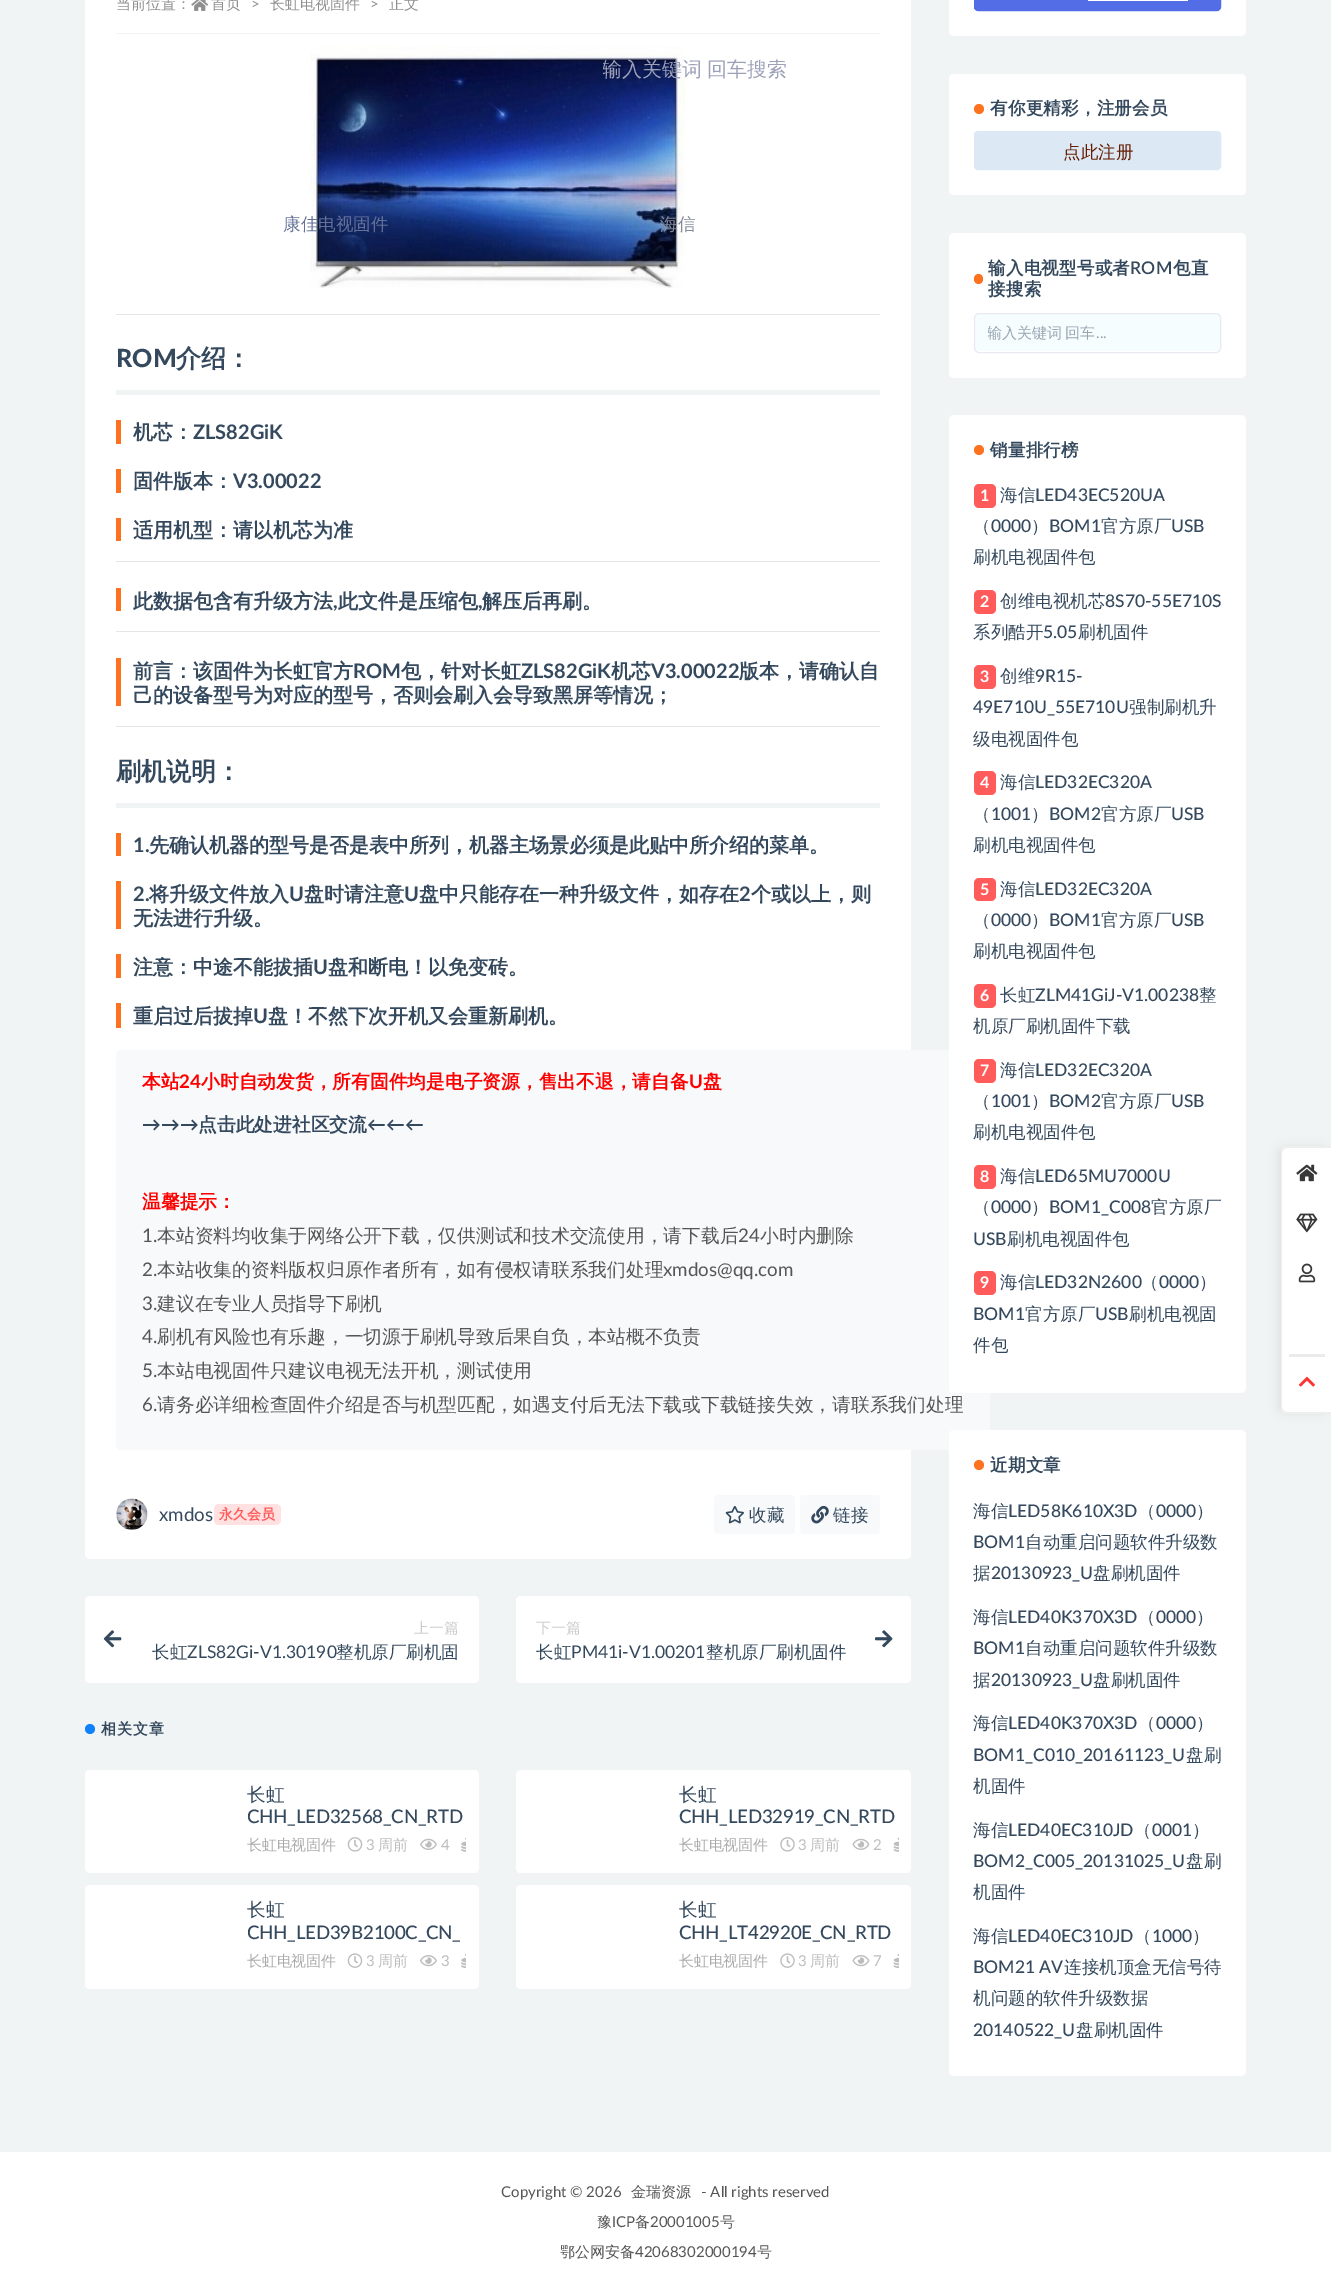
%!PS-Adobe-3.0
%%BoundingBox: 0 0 1331 2292
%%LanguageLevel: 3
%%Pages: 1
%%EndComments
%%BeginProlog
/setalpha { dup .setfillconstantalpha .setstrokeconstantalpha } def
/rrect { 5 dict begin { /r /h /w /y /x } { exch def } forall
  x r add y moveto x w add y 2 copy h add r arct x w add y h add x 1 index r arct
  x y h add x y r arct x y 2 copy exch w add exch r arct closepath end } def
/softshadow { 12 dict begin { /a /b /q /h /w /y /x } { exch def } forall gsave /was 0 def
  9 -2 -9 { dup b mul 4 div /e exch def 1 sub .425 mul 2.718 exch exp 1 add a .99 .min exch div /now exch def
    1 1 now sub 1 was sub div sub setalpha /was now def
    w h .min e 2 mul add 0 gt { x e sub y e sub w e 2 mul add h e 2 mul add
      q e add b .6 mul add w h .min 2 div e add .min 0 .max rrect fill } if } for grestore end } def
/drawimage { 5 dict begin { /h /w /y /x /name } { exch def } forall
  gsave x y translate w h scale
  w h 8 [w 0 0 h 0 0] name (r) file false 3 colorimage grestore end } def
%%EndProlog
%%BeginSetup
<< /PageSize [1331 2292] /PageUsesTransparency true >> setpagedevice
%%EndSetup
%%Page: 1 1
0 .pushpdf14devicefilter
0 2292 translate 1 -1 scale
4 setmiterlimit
0.941 0.957 0.961 setrgbcolor
0 0 1331 2292 rectfill
1 setgray
85 -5 826 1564 5 rrect fill
0.941 0.957 0.961 setrgbcolor
116 33 764 1 rectfill
(images/1.raw) 191 0 18 11 drawimage
(images/2.raw) 310 46 375 242 drawimage
0.902 setgray
116 314 764 1 rectfill
0.941 0.957 0.961 setrgbcolor
116 390 764 5 rectfill
0.992 0.447 0.122 setrgbcolor
116 420 5 24 rectfill
116 469 5 24 rectfill
116 518 5 23 rectfill
0.902 setgray
116 561 764 1 rectfill
0.992 0.447 0.122 setrgbcolor
116 588 5 23 rectfill
0.902 setgray
116 631 764 1 rectfill
0.992 0.447 0.122 setrgbcolor
116 658 5 48 rectfill
0.902 setgray
116 726 764 1 rectfill
0.941 0.957 0.961 setrgbcolor
116 803 764 5 rectfill
0.992 0.447 0.122 setrgbcolor
116 833 5 23 rectfill
116 881 5 48 rectfill
116 954 5 24 rectfill
116 1003 5 25 rectfill
0.973 0.976 0.98 setrgbcolor
116 1050 874 400 5 rrect fill
(images/3.raw) 116 1498 32 32 drawimage
1 0.882 0.882 setrgbcolor
214 1504 67 21 5 rrect fill
0.973 0.976 0.98 setrgbcolor
714 1495 81 39 4 rrect fill
(images/4.raw) 725 1506 19 18 drawimage
800 1495 80 39 4 rrect fill
(images/5.raw) 811 1505 18 19 drawimage
1 setgray
85 1596 394 87 5 rrect fill
(images/6.raw) 103 1630 19 18 drawimage
516 1596 395 87 5 rrect fill
(images/7.raw) 875 1630 18 18 drawimage
0.059 0.506 0.984 setrgbcolor
newpath 90 1729 5 0 360 arc closepath fill
1 setgray
85 1770 394 103 5 rrect fill
(images/8.raw) 347 1837 16 15 drawimage
(images/9.raw) 420 1838 17 12 drawimage
(images/10.raw) 461 1837 5 15 drawimage
516 1770 395 103 5 rrect fill
(images/11.raw) 780 1837 15 15 drawimage
(images/12.raw) 852 1838 18 12 drawimage
(images/13.raw) 893 1837 6 15 drawimage
85 1885 394 104 5 rrect fill
(images/14.raw) 347 1953 16 15 drawimage
(images/15.raw) 420 1955 17 12 drawimage
(images/16.raw) 461 1954 5 14 drawimage
516 1885 395 104 5 rrect fill
(images/17.raw) 780 1953 15 15 drawimage
(images/18.raw) 852 1955 18 12 drawimage
(images/19.raw) 893 1954 6 15 drawimage
949 -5 297 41 5 rrect fill
0.325 0.427 0.902 setrgbcolor
974.5 -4.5 246 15 3.5 rrect gsave fill grestore
stroke
1 setgray
1088 0 100 1 rectfill
949 74 297 121 5 rrect fill
0.992 0.447 0.122 setrgbcolor
newpath 979 109 5 0 360 arc closepath fill
0.867 0.91 0.961 setrgbcolor
974.5 131.5 246 38 3.5 rrect gsave fill grestore
stroke
1 setgray
949 233 297 145 5 rrect fill
0.992 0.447 0.122 setrgbcolor
974 274 9 10 4.5 rrect fill
0.965 0.992 1 setrgbcolor
975 314 245 37 4 rrect fill
0.906 0.918 0.953 setrgbcolor
974.5 313.5 246 39 4.5 rrect stroke
1 setgray
949 415 297 978 5 rrect fill
0.992 0.447 0.122 setrgbcolor
newpath 979 450 5 0 360 arc closepath fill
1 0.357 0.357 setrgbcolor
974 484 22 24 5 rrect fill
974 590 22 24 5 rrect fill
974 665 22 24 5 rrect fill
974 771 22 24 5 rrect fill
974 878 22 23 5 rrect fill
974 984 22 24 5 rrect fill
974 1059 22 24 5 rrect fill
974 1165 22 24 5 rrect fill
974 1271 22 24 5 rrect fill
1 setgray
949 1430 297 646 5 rrect fill
0.992 0.447 0.122 setrgbcolor
newpath 979 1465 5 0 360 arc closepath fill
1 setgray
0 2152 1331 140 rectfill
0 setgray
1280 1149 45 262 4 6 0.1 softshadow
1 setgray
newpath 1287 1146 moveto 1331 1146 lineto 1331 1414 lineto 1287 1414 lineto 1283.5 1414 1281 1411.5 1281 1408 curveto 1281 1152 lineto 1281 1148.5 1283.5 1146 1287 1146 curveto closepath fill
0.933 setgray
newpath 1288 1146 moveto 1331 1146 lineto 1331 1414 lineto 1288 1414 lineto 1284 1414 1281 1411 1281 1408 curveto 1281 1152 lineto 1281 1149 1284 1146 1288 1146 curveto closepath 1288 1148 moveto 1331 1148 lineto 1331 1412 lineto 1288 1412 lineto 1285 1412 1282 1410 1282 1408 curveto 1282 1152 lineto 1282 1150 1285 1148 1288 1148 curveto closepath eofill
(images/20.raw) 1296 1164 22 18 drawimage
(images/21.raw) 1296 1213 22 20 drawimage
(images/22.raw) 1298 1263 18 20 drawimage
0.922 setgray
1289 1354 36 3 rectfill
(images/23.raw) 1299 1376 16 11 drawimage
/WenQuanYiZenHei-Medium [15 0 0 -15 0 0] selectfont
0.561 setgray
116 9 moveto (当前位置：) show
211 9 moveto (首页) show
/Lato-Regular [15 0 0 -15 0 0] selectfont
251 9 moveto (>) show
/WenQuanYiZenHei-Medium [15 0 0 -15 0 0] selectfont
270 9 moveto (长虹电视固件) show
/Lato-Regular [15 0 0 -15 0 0] selectfont
370 9 moveto (>) show
/WenQuanYiZenHei-Medium [15 0 0 -15 0 0] selectfont
389 9 moveto (正文) show
/Lato-Black [25 0 0 -25 0 0] selectfont
0.204 0.286 0.369 setrgbcolor
116 367 moveto (ROM) show
/WenQuanYiZenHei-Bold [25 0 0 -25 0 0] selectfont
176 367 moveto (介绍：) show
/WenQuanYiZenHei-Bold [20 0 0 -20 0 0] selectfont
133 439 moveto (机芯：) show
/Lato-Bold [20 0 0 -20 0 0] selectfont
193 439 moveto (ZLS82GiK) show
/WenQuanYiZenHei-Bold [20 0 0 -20 0 0] selectfont
133 488 moveto (固件版本：) show
/Lato-Bold [20 0 0 -20 0 0] selectfont
233 488 moveto (V3.00022) show
/WenQuanYiZenHei-Bold [20 0 0 -20 0 0] selectfont
133 537 moveto (适用机型：请以机芯为准) show
133 608 moveto (此数据包含有升级方法) show
/Lato-Bold [20 0 0 -20 0 0] selectfont
333 608 moveto (,) show
/WenQuanYiZenHei-Bold [20 0 0 -20 0 0] selectfont
338 608 moveto (此文件是压缩包) show
/Lato-Bold [20 0 0 -20 0 0] selectfont
478 608 moveto (,) show
/WenQuanYiZenHei-Bold [20 0 0 -20 0 0] selectfont
482 608 moveto (解压后再刷。) show
133 678 moveto (前言：该固件为长虹官方) show
/Lato-Bold [20 0 0 -20 0 0] selectfont
353 678 moveto (ROM) show
/WenQuanYiZenHei-Bold [20 0 0 -20 0 0] selectfont
401 678 moveto (包，针对长虹) show
/Lato-Bold [20 0 0 -20 0 0] selectfont
521 678 moveto (ZLS82GiK) show
/WenQuanYiZenHei-Bold [20 0 0 -20 0 0] selectfont
611 678 moveto (机芯) show
/Lato-Bold [20 0 0 -20 0 0] selectfont
651 678 moveto (V3.00022) show
/WenQuanYiZenHei-Bold [20 0 0 -20 0 0] selectfont
739 678 moveto (版本，请确认自) show
133 702 moveto (己的设备型号为对应的型号，否则会刷入会导致黑屏等情况；) show
/WenQuanYiZenHei-Bold [25 0 0 -25 0 0] selectfont
116 780 moveto (刷机说明：) show
/Lato-Bold [20 0 0 -20 0 0] selectfont
133 852 moveto (1.) show
/WenQuanYiZenHei-Bold [20 0 0 -20 0 0] selectfont
149 852 moveto (先确认机器的型号是否是表中所列，机器主场景必须是此贴中所介绍的菜单。) show
/Lato-Bold [20 0 0 -20 0 0] selectfont
133 901 moveto (2.) show
/WenQuanYiZenHei-Bold [20 0 0 -20 0 0] selectfont
149 901 moveto (将升级文件放入) show
/Lato-Bold [20 0 0 -20 0 0] selectfont
289 901 moveto (U) show
/WenQuanYiZenHei-Bold [20 0 0 -20 0 0] selectfont
304 901 moveto (盘时请注意) show
/Lato-Bold [20 0 0 -20 0 0] selectfont
404 901 moveto (U) show
/WenQuanYiZenHei-Bold [20 0 0 -20 0 0] selectfont
419 901 moveto (盘中只能存在一种升级文件，如存在) show
/Lato-Bold [20 0 0 -20 0 0] selectfont
739 901 moveto (2) show
/WenQuanYiZenHei-Bold [20 0 0 -20 0 0] selectfont
751 901 moveto (个或以上，则) show
133 925 moveto (无法进行升级。) show
133 974 moveto (注意：中途不能拔插) show
/Lato-Bold [20 0 0 -20 0 0] selectfont
313 974 moveto (U) show
/WenQuanYiZenHei-Bold [20 0 0 -20 0 0] selectfont
328 974 moveto (盘和断电！以免变砖。) show
133 1023 moveto (重启过后拔掉) show
/Lato-Bold [20 0 0 -20 0 0] selectfont
253 1023 moveto (U) show
/WenQuanYiZenHei-Bold [20 0 0 -20 0 0] selectfont
268 1023 moveto (盘！不然下次开机又会重新刷机。) show
/WenQuanYiZenHei-Bold [18.75 0 0 -18.75 0 0] selectfont
1 0 0 setrgbcolor
142 1088 moveto (本站) show
/Lato-Bold [18.75 0 0 -18.75 0 0] selectfont
179 1088 moveto (24) show
/WenQuanYiZenHei-Bold [18.75 0 0 -18.75 0 0] selectfont
201 1088 moveto (小时自动发货，所有固件均是电子资源，售出不退，请自备) show
/Lato-Bold [18.75 0 0 -18.75 0 0] selectfont
689 1088 moveto (U) show
/WenQuanYiZenHei-Bold [18.75 0 0 -18.75 0 0] selectfont
703 1088 moveto (盘) show
/Lato-Bold [18.75 0 0 -18.75 0 0] selectfont
0.204 0.286 0.369 setrgbcolor
142 1131 moveto (→→→) show
/WenQuanYiZenHei-Bold [18.75 0 0 -18.75 0 0] selectfont
198 1131 moveto (点击此处进社区交流) show
/Lato-Bold [18.75 0 0 -18.75 0 0] selectfont
367 1131 moveto (←←←) show
/WenQuanYiZenHei-Bold [18.75 0 0 -18.75 0 0] selectfont
1 0 0 setrgbcolor
142 1208 moveto (温馨提示：) show
/Lato-Regular [18.75 0 0 -18.75 0 0] selectfont
0.333 setgray
142 1242 moveto (1.) show
/WenQuanYiZenHei-Medium [18.75 0 0 -18.75 0 0] selectfont
157 1242 moveto (本站资料均收集于网络公开下载，仅供测试和技术交流使用，请下载后) show
/Lato-Regular [18.75 0 0 -18.75 0 0] selectfont
738 1242 moveto (24) show
/WenQuanYiZenHei-Medium [18.75 0 0 -18.75 0 0] selectfont
760 1242 moveto (小时内删除) show
/Lato-Regular [18.75 0 0 -18.75 0 0] selectfont
142 1276 moveto (2.) show
/WenQuanYiZenHei-Medium [18.75 0 0 -18.75 0 0] selectfont
157 1276 moveto (本站收集的资料版权归原作者所有，如有侵权请联系我们处理) show
/Lato-Regular [18.75 0 0 -18.75 0 0] selectfont
663 1276 moveto (xmdos@qq.com) show
142 1310 moveto (3.) show
/WenQuanYiZenHei-Medium [18.75 0 0 -18.75 0 0] selectfont
157 1310 moveto (建议在专业人员指导下刷机) show
/Lato-Regular [18.75 0 0 -18.75 0 0] selectfont
142 1343 moveto (4.) show
/WenQuanYiZenHei-Medium [18.75 0 0 -18.75 0 0] selectfont
157 1343 moveto (刷机有风险也有乐趣，一切源于刷机导致后果自负，本站概不负责) show
/Lato-Regular [18.75 0 0 -18.75 0 0] selectfont
142 1377 moveto (5.) show
/WenQuanYiZenHei-Medium [18.75 0 0 -18.75 0 0] selectfont
157 1377 moveto (本站电视固件只建议电视无法开机，测试使用) show
/Lato-Regular [18.75 0 0 -18.75 0 0] selectfont
142 1411 moveto (6.) show
/WenQuanYiZenHei-Medium [18.75 0 0 -18.75 0 0] selectfont
157 1411 moveto (请务必详细检查固件介绍是否与机型匹配，如遇支付后无法下载或下载链接失效，请联系我们处理) show
/Lato-Regular [18.75 0 0 -18.75 0 0] selectfont
0.204 0.286 0.369 setrgbcolor
159 1521 moveto (xmdos) show
/WenQuanYiZenHei-Bold [14 0 0 -14 0 0] selectfont
1 0.357 0.357 setrgbcolor
219 1519 moveto (永久会员) show
/WenQuanYiZenHei-Medium [17.5 0 0 -17.5 0 0] selectfont
0.204 0.286 0.369 setrgbcolor
749 1521 moveto (收藏) show
833 1521 moveto (链接) show
/WenQuanYiZenHei-Medium [15 0 0 -15 0 0] selectfont
0.8 setgray
414 1633 moveto (上一篇) show
/WenQuanYiZenHei-Medium [17.5 0 0 -17.5 0 0] selectfont
0.204 0.286 0.369 setrgbcolor
152 1658 moveto (长虹) show
/Lato-Regular [17.5 0 0 -17.5 0 0] selectfont
187 1658 moveto (ZLS82Gi-V1.30190) show
/WenQuanYiZenHei-Medium [17.5 0 0 -17.5 0 0] selectfont
336 1658 moveto (整机原厂刷机固) show
/WenQuanYiZenHei-Medium [15 0 0 -15 0 0] selectfont
0.8 setgray
536 1633 moveto (下一篇) show
/WenQuanYiZenHei-Medium [17.5 0 0 -17.5 0 0] selectfont
0.204 0.286 0.369 setrgbcolor
536 1658 moveto (长虹) show
/Lato-Regular [17.5 0 0 -17.5 0 0] selectfont
571 1658 moveto (PM41i-V1.00201) show
/WenQuanYiZenHei-Medium [17.5 0 0 -17.5 0 0] selectfont
706 1658 moveto (整机原厂刷机固件) show
/WenQuanYiZenHei-Bold [15 0 0 -15 0 0] selectfont
101 1734 moveto 1 0 (相关文章) ashow
/WenQuanYiZenHei-Medium [18.75 0 0 -18.75 0 0] selectfont
247 1801 moveto -0.25 0 (长虹) ashow
gsave
248 1783 218 45 rectclip
/Lato-Medium [18.75 0 0 -18.75 0 0] selectfont
247 1823 moveto -0.25 0 (CHH_LED32568_CN_RTD) ashow
grestore
/WenQuanYiZenHei-Medium [15 0 0 -15 0 0] selectfont
0.667 setgray
247 1850 moveto -0.25 0 (长虹电视固件) ashow
/Lato-Regular [15 0 0 -15 0 0] selectfont
0.741 setgray
366 1850 moveto -0.25 0 (3) ashow
/WenQuanYiZenHei-Medium [15 0 0 -15 0 0] selectfont
378 1850 moveto -0.25 0 (周前) ashow
/Lato-Regular [15 0 0 -15 0 0] selectfont
441 1850 moveto -0.25 0 (4) ashow
/WenQuanYiZenHei-Medium [18.75 0 0 -18.75 0 0] selectfont
0.204 0.286 0.369 setrgbcolor
679 1801 moveto -0.25 0 (长虹) ashow
/Lato-Medium [18.75 0 0 -18.75 0 0] selectfont
679 1823 moveto -0.25 0 (CHH_LED32919_CN_RTD) ashow
/WenQuanYiZenHei-Medium [15 0 0 -15 0 0] selectfont
0.667 setgray
679 1850 moveto -0.25 0 (长虹电视固件) ashow
/Lato-Regular [15 0 0 -15 0 0] selectfont
0.741 setgray
798 1850 moveto -0.25 0 (3) ashow
/WenQuanYiZenHei-Medium [15 0 0 -15 0 0] selectfont
810 1850 moveto -0.25 0 (周前) ashow
/Lato-Regular [15 0 0 -15 0 0] selectfont
873 1850 moveto -0.25 0 (2) ashow
/WenQuanYiZenHei-Medium [18.75 0 0 -18.75 0 0] selectfont
0.204 0.286 0.369 setrgbcolor
247 1916 moveto -0.25 0 (长虹) ashow
gsave
248 1898 218 45 rectclip
/Lato-Medium [18.75 0 0 -18.75 0 0] selectfont
247 1939 moveto -0.25 0 (CHH_LED39B2100C_CN_) ashow
grestore
/WenQuanYiZenHei-Medium [15 0 0 -15 0 0] selectfont
0.667 setgray
247 1966 moveto -0.25 0 (长虹电视固件) ashow
/Lato-Regular [15 0 0 -15 0 0] selectfont
0.741 setgray
366 1966 moveto -0.25 0 (3) ashow
/WenQuanYiZenHei-Medium [15 0 0 -15 0 0] selectfont
378 1966 moveto -0.25 0 (周前) ashow
/Lato-Regular [15 0 0 -15 0 0] selectfont
441 1966 moveto -0.25 0 (3) ashow
/WenQuanYiZenHei-Medium [18.75 0 0 -18.75 0 0] selectfont
0.204 0.286 0.369 setrgbcolor
679 1916 moveto -0.25 0 (长虹) ashow
/Lato-Medium [18.75 0 0 -18.75 0 0] selectfont
679 1939 moveto -0.25 0 (CHH_LT42920E_CN_RTD) ashow
/WenQuanYiZenHei-Medium [15 0 0 -15 0 0] selectfont
0.667 setgray
679 1966 moveto -0.25 0 (长虹电视固件) ashow
/Lato-Regular [15 0 0 -15 0 0] selectfont
0.741 setgray
798 1966 moveto -0.25 0 (3) ashow
/WenQuanYiZenHei-Medium [15 0 0 -15 0 0] selectfont
810 1966 moveto -0.25 0 (周前) ashow
/Lato-Regular [15 0 0 -15 0 0] selectfont
873 1966 moveto -0.25 0 (7) ashow
/WenQuanYiZenHei-Bold [17.5 0 0 -17.5 0 0] selectfont
0.204 0.286 0.369 setrgbcolor
990 114 moveto 0.25 0 (有你更精彩，注册会员) ashow
/WenQuanYiZenHei-Medium [17.5 0 0 -17.5 0 0] selectfont
0.388 0.11 0 setrgbcolor
1063 158 moveto (点此注册) show
/WenQuanYiZenHei-Bold [17.5 0 0 -17.5 0 0] selectfont
0.204 0.286 0.369 setrgbcolor
988 274 moveto 0.25 0 (输入电视型号或者) ashow
/Lato-SemiBold [17.5 0 0 -17.5 0 0] selectfont
1130 274 moveto 0.25 0 (ROM) ashow
/WenQuanYiZenHei-Bold [17.5 0 0 -17.5 0 0] selectfont
1173 274 moveto 0.25 0 (包直) ashow
988 295 moveto 0.25 0 (接搜索) ashow
gsave
988 323 220 21 rectclip
/WenQuanYiZenHei-Medium [15 0 0 -15 0 0] selectfont
0.592 0.643 0.686 setrgbcolor
987 338 moveto -1 0 32 (输入关键词 回车) widthshow
grestore
/Lato-Regular [15 0 0 -15 0 0] selectfont
0.592 0.643 0.686 setrgbcolor
1096 338 moveto (...) show
/WenQuanYiZenHei-Bold [17.5 0 0 -17.5 0 0] selectfont
0.204 0.286 0.369 setrgbcolor
990 456 moveto 0.25 0 (销量排行榜) ashow
/Lato-Bold [16 0 0 -16 0 0] selectfont
1 setgray
980 501 moveto (1) show
/WenQuanYiZenHei-Medium [17.5 0 0 -17.5 0 0] selectfont
0.204 0.286 0.369 setrgbcolor
1000 501 moveto (海信) show
/Lato-Medium [17.5 0 0 -17.5 0 0] selectfont
1035 501 moveto (LED43EC520UA) show
/WenQuanYiZenHei-Medium [17.5 0 0 -17.5 0 0] selectfont
973 532 moveto (（) show
/Lato-Medium [17.5 0 0 -17.5 0 0] selectfont
991 532 moveto (0000) show
/WenQuanYiZenHei-Medium [17.5 0 0 -17.5 0 0] selectfont
1031 532 moveto (）) show
/Lato-Medium [17.5 0 0 -17.5 0 0] selectfont
1049 532 moveto (BOM1) show
/WenQuanYiZenHei-Medium [17.5 0 0 -17.5 0 0] selectfont
1101 532 moveto (官方原厂) show
/Lato-Medium [17.5 0 0 -17.5 0 0] selectfont
1171 532 moveto (USB) show
/WenQuanYiZenHei-Medium [17.5 0 0 -17.5 0 0] selectfont
973 563 moveto (刷机电视固件包) show
/Lato-Bold [16 0 0 -16 0 0] selectfont
1 setgray
980 607 moveto (2) show
/WenQuanYiZenHei-Medium [17.5 0 0 -17.5 0 0] selectfont
0.204 0.286 0.369 setrgbcolor
1000 607 moveto (创维电视机芯) show
/Lato-Medium [17.5 0 0 -17.5 0 0] selectfont
1105 607 moveto (8S70-55E710S) show
/WenQuanYiZenHei-Medium [17.5 0 0 -17.5 0 0] selectfont
973 638 moveto (系列酷开) show
/Lato-Medium [17.5 0 0 -17.5 0 0] selectfont
1043 638 moveto (5.05) show
/WenQuanYiZenHei-Medium [17.5 0 0 -17.5 0 0] selectfont
1078 638 moveto (刷机固件) show
/Lato-Bold [16 0 0 -16 0 0] selectfont
1 setgray
980 682 moveto (3) show
/WenQuanYiZenHei-Medium [17.5 0 0 -17.5 0 0] selectfont
0.204 0.286 0.369 setrgbcolor
1000 682 moveto (创维) show
/Lato-Medium [17.5 0 0 -17.5 0 0] selectfont
1035 682 moveto (9R15-) show
973 713 moveto (49E710U_55E710U) show
/WenQuanYiZenHei-Medium [17.5 0 0 -17.5 0 0] selectfont
1129 713 moveto (强制刷机升) show
973 745 moveto (级电视固件包) show
/Lato-Bold [16 0 0 -16 0 0] selectfont
1 setgray
980 788 moveto (4) show
/WenQuanYiZenHei-Medium [17.5 0 0 -17.5 0 0] selectfont
0.204 0.286 0.369 setrgbcolor
1000 788 moveto (海信) show
/Lato-Medium [17.5 0 0 -17.5 0 0] selectfont
1035 788 moveto (LED32EC320A) show
/WenQuanYiZenHei-Medium [17.5 0 0 -17.5 0 0] selectfont
973 820 moveto (（) show
/Lato-Medium [17.5 0 0 -17.5 0 0] selectfont
991 820 moveto (1001) show
/WenQuanYiZenHei-Medium [17.5 0 0 -17.5 0 0] selectfont
1031 820 moveto (）) show
/Lato-Medium [17.5 0 0 -17.5 0 0] selectfont
1049 820 moveto (BOM2) show
/WenQuanYiZenHei-Medium [17.5 0 0 -17.5 0 0] selectfont
1101 820 moveto (官方原厂) show
/Lato-Medium [17.5 0 0 -17.5 0 0] selectfont
1171 820 moveto (USB) show
/WenQuanYiZenHei-Medium [17.5 0 0 -17.5 0 0] selectfont
973 851 moveto (刷机电视固件包) show
/Lato-Bold [16 0 0 -16 0 0] selectfont
1 setgray
980 895 moveto (5) show
/WenQuanYiZenHei-Medium [17.5 0 0 -17.5 0 0] selectfont
0.204 0.286 0.369 setrgbcolor
1000 895 moveto (海信) show
/Lato-Medium [17.5 0 0 -17.5 0 0] selectfont
1035 895 moveto (LED32EC320A) show
/WenQuanYiZenHei-Medium [17.5 0 0 -17.5 0 0] selectfont
973 926 moveto (（) show
/Lato-Medium [17.5 0 0 -17.5 0 0] selectfont
991 926 moveto (0000) show
/WenQuanYiZenHei-Medium [17.5 0 0 -17.5 0 0] selectfont
1031 926 moveto (）) show
/Lato-Medium [17.5 0 0 -17.5 0 0] selectfont
1049 926 moveto (BOM1) show
/WenQuanYiZenHei-Medium [17.5 0 0 -17.5 0 0] selectfont
1101 926 moveto (官方原厂) show
/Lato-Medium [17.5 0 0 -17.5 0 0] selectfont
1171 926 moveto (USB) show
/WenQuanYiZenHei-Medium [17.5 0 0 -17.5 0 0] selectfont
973 957 moveto (刷机电视固件包) show
/Lato-Bold [16 0 0 -16 0 0] selectfont
1 setgray
980 1001 moveto (6) show
/WenQuanYiZenHei-Medium [17.5 0 0 -17.5 0 0] selectfont
0.204 0.286 0.369 setrgbcolor
1000 1001 moveto (长虹) show
/Lato-Medium [17.5 0 0 -17.5 0 0] selectfont
1035 1001 moveto (ZLM41GiJ-V1.00238) show
/WenQuanYiZenHei-Medium [17.5 0 0 -17.5 0 0] selectfont
1199 1001 moveto (整) show
973 1032 moveto (机原厂刷机固件下载) show
/Lato-Bold [16 0 0 -16 0 0] selectfont
1 setgray
980 1076 moveto (7) show
/WenQuanYiZenHei-Medium [17.5 0 0 -17.5 0 0] selectfont
0.204 0.286 0.369 setrgbcolor
1000 1076 moveto (海信) show
/Lato-Medium [17.5 0 0 -17.5 0 0] selectfont
1035 1076 moveto (LED32EC320A) show
/WenQuanYiZenHei-Medium [17.5 0 0 -17.5 0 0] selectfont
973 1107 moveto (（) show
/Lato-Medium [17.5 0 0 -17.5 0 0] selectfont
991 1107 moveto (1001) show
/WenQuanYiZenHei-Medium [17.5 0 0 -17.5 0 0] selectfont
1031 1107 moveto (）) show
/Lato-Medium [17.5 0 0 -17.5 0 0] selectfont
1049 1107 moveto (BOM2) show
/WenQuanYiZenHei-Medium [17.5 0 0 -17.5 0 0] selectfont
1101 1107 moveto (官方原厂) show
/Lato-Medium [17.5 0 0 -17.5 0 0] selectfont
1171 1107 moveto (USB) show
/WenQuanYiZenHei-Medium [17.5 0 0 -17.5 0 0] selectfont
973 1138 moveto (刷机电视固件包) show
/Lato-Bold [16 0 0 -16 0 0] selectfont
1 setgray
980 1182 moveto (8) show
/WenQuanYiZenHei-Medium [17.5 0 0 -17.5 0 0] selectfont
0.204 0.286 0.369 setrgbcolor
1000 1182 moveto (海信) show
/Lato-Medium [17.5 0 0 -17.5 0 0] selectfont
1035 1182 moveto (LED65MU7000U) show
/WenQuanYiZenHei-Medium [17.5 0 0 -17.5 0 0] selectfont
973 1213 moveto (（) show
/Lato-Medium [17.5 0 0 -17.5 0 0] selectfont
991 1213 moveto (0000) show
/WenQuanYiZenHei-Medium [17.5 0 0 -17.5 0 0] selectfont
1031 1213 moveto (）) show
/Lato-Medium [17.5 0 0 -17.5 0 0] selectfont
1049 1213 moveto (BOM1_C008) show
/WenQuanYiZenHei-Medium [17.5 0 0 -17.5 0 0] selectfont
1151 1213 moveto (官方原厂) show
/Lato-Medium [17.5 0 0 -17.5 0 0] selectfont
973 1245 moveto (USB) show
/WenQuanYiZenHei-Medium [17.5 0 0 -17.5 0 0] selectfont
1007 1245 moveto (刷机电视固件包) show
/Lato-Bold [16 0 0 -16 0 0] selectfont
1 setgray
980 1288 moveto (9) show
/WenQuanYiZenHei-Medium [17.5 0 0 -17.5 0 0] selectfont
0.204 0.286 0.369 setrgbcolor
1000 1288 moveto (海信) show
/Lato-Medium [17.5 0 0 -17.5 0 0] selectfont
1035 1288 moveto (LED32N2600) show
/WenQuanYiZenHei-Medium [17.5 0 0 -17.5 0 0] selectfont
1141 1288 moveto (（) show
/Lato-Medium [17.5 0 0 -17.5 0 0] selectfont
1159 1288 moveto (0000) show
/WenQuanYiZenHei-Medium [17.5 0 0 -17.5 0 0] selectfont
1199 1288 moveto (）) show
/Lato-Medium [17.5 0 0 -17.5 0 0] selectfont
973 1320 moveto (BOM1) show
/WenQuanYiZenHei-Medium [17.5 0 0 -17.5 0 0] selectfont
1025 1320 moveto (官方原厂) show
/Lato-Medium [17.5 0 0 -17.5 0 0] selectfont
1095 1320 moveto (USB) show
/WenQuanYiZenHei-Medium [17.5 0 0 -17.5 0 0] selectfont
1129 1320 moveto (刷机电视固) show
973 1351 moveto (件包) show
/WenQuanYiZenHei-Bold [17.5 0 0 -17.5 0 0] selectfont
990 1471 moveto 0.25 0 (近期文章) ashow
/WenQuanYiZenHei-Medium [17.5 0 0 -17.5 0 0] selectfont
973 1517 moveto (海信) show
/Lato-Medium [17.5 0 0 -17.5 0 0] selectfont
1008 1517 moveto (LED58K610X3D) show
/WenQuanYiZenHei-Medium [17.5 0 0 -17.5 0 0] selectfont
1138 1517 moveto (（) show
/Lato-Medium [17.5 0 0 -17.5 0 0] selectfont
1156 1517 moveto (0000) show
/WenQuanYiZenHei-Medium [17.5 0 0 -17.5 0 0] selectfont
1196 1517 moveto (）) show
/Lato-Medium [17.5 0 0 -17.5 0 0] selectfont
973 1548 moveto (BOM1) show
/WenQuanYiZenHei-Medium [17.5 0 0 -17.5 0 0] selectfont
1025 1548 moveto (自动重启问题软件升级数) show
973 1579 moveto (据) show
/Lato-Medium [17.5 0 0 -17.5 0 0] selectfont
991 1579 moveto (20130923_U) show
/WenQuanYiZenHei-Medium [17.5 0 0 -17.5 0 0] selectfont
1093 1579 moveto (盘刷机固件) show
973 1623 moveto (海信) show
/Lato-Medium [17.5 0 0 -17.5 0 0] selectfont
1008 1623 moveto (LED40K370X3D) show
/WenQuanYiZenHei-Medium [17.5 0 0 -17.5 0 0] selectfont
1138 1623 moveto (（) show
/Lato-Medium [17.5 0 0 -17.5 0 0] selectfont
1156 1623 moveto (0000) show
/WenQuanYiZenHei-Medium [17.5 0 0 -17.5 0 0] selectfont
1196 1623 moveto (）) show
/Lato-Medium [17.5 0 0 -17.5 0 0] selectfont
973 1654 moveto (BOM1) show
/WenQuanYiZenHei-Medium [17.5 0 0 -17.5 0 0] selectfont
1025 1654 moveto (自动重启问题软件升级数) show
973 1686 moveto (据) show
/Lato-Medium [17.5 0 0 -17.5 0 0] selectfont
991 1686 moveto (20130923_U) show
/WenQuanYiZenHei-Medium [17.5 0 0 -17.5 0 0] selectfont
1093 1686 moveto (盘刷机固件) show
973 1729 moveto (海信) show
/Lato-Medium [17.5 0 0 -17.5 0 0] selectfont
1008 1729 moveto (LED40K370X3D) show
/WenQuanYiZenHei-Medium [17.5 0 0 -17.5 0 0] selectfont
1138 1729 moveto (（) show
/Lato-Medium [17.5 0 0 -17.5 0 0] selectfont
1156 1729 moveto (0000) show
/WenQuanYiZenHei-Medium [17.5 0 0 -17.5 0 0] selectfont
1196 1729 moveto (）) show
/Lato-Medium [17.5 0 0 -17.5 0 0] selectfont
973 1761 moveto (BOM1_C010_20161123_U) show
/WenQuanYiZenHei-Medium [17.5 0 0 -17.5 0 0] selectfont
1186 1761 moveto (盘刷) show
973 1792 moveto (机固件) show
973 1836 moveto (海信) show
/Lato-Medium [17.5 0 0 -17.5 0 0] selectfont
1008 1836 moveto (LED40EC310JD) show
/WenQuanYiZenHei-Medium [17.5 0 0 -17.5 0 0] selectfont
1134 1836 moveto (（) show
/Lato-Medium [17.5 0 0 -17.5 0 0] selectfont
1152 1836 moveto (0001) show
/WenQuanYiZenHei-Medium [17.5 0 0 -17.5 0 0] selectfont
1192 1836 moveto (）) show
/Lato-Medium [17.5 0 0 -17.5 0 0] selectfont
973 1867 moveto (BOM2_C005_20131025_U) show
/WenQuanYiZenHei-Medium [17.5 0 0 -17.5 0 0] selectfont
1186 1867 moveto (盘刷) show
973 1898 moveto (机固件) show
973 1942 moveto (海信) show
/Lato-Medium [17.5 0 0 -17.5 0 0] selectfont
1008 1942 moveto (LED40EC310JD) show
/WenQuanYiZenHei-Medium [17.5 0 0 -17.5 0 0] selectfont
1134 1942 moveto (（) show
/Lato-Medium [17.5 0 0 -17.5 0 0] selectfont
1152 1942 moveto (1000) show
/WenQuanYiZenHei-Medium [17.5 0 0 -17.5 0 0] selectfont
1192 1942 moveto (）) show
/Lato-Medium [17.5 0 0 -17.5 0 0] selectfont
973 1973 moveto (BOM21 AV) show
/WenQuanYiZenHei-Medium [17.5 0 0 -17.5 0 0] selectfont
1064 1973 moveto (连接机顶盒无信号待) show
973 2004 moveto (机问题的软件升级数据) show
/Lato-Medium [17.5 0 0 -17.5 0 0] selectfont
973 2036 moveto (20140522_U) show
/WenQuanYiZenHei-Medium [17.5 0 0 -17.5 0 0] selectfont
1076 2036 moveto (盘刷机固件) show
/Lato-Regular [15 0 0 -15 0 0] selectfont
0.333 setgray
501 2197 moveto (Copyright © 2026) show
/WenQuanYiZenHei-Medium [15 0 0 -15 0 0] selectfont
631 2197 moveto (金瑞资源) show
/Lato-Regular [15 0 0 -15 0 0] selectfont
701 2197 moveto (- All rights reserved) show
/WenQuanYiZenHei-Medium [15 0 0 -15 0 0] selectfont
597 2227 moveto (豫) show
/Lato-Regular [15 0 0 -15 0 0] selectfont
612 2227 moveto (ICP) show
/WenQuanYiZenHei-Medium [15 0 0 -15 0 0] selectfont
635 2227 moveto (备) show
/Lato-Regular [15 0 0 -15 0 0] selectfont
650 2227 moveto (20001005) show
/WenQuanYiZenHei-Medium [15 0 0 -15 0 0] selectfont
720 2227 moveto (号) show
560 2257 moveto (鄂公网安备) show
/Lato-Regular [15 0 0 -15 0 0] selectfont
635 2257 moveto (42068302000194) show
/WenQuanYiZenHei-Medium [15 0 0 -15 0 0] selectfont
757 2257 moveto (号) show
gsave
603 56 472 28 rectclip
/WenQuanYiZenHei-Medium [20 0 0 -20 0 0] selectfont
0.612 0.631 0.718 setrgbcolor
602 76 moveto -1 0 32 (输入关键词 回车搜索) widthshow
grestore
/WenQuanYiZenHei-Medium [17.5 0 0 -17.5 0 0] selectfont
0.388 0.439 0.592 setrgbcolor
283 230 moveto (康佳电视固件) show
0.514 0.541 0.608 setrgbcolor
660 230 moveto (海信) show
.poppdf14devicefilter showpage
%%EOF
